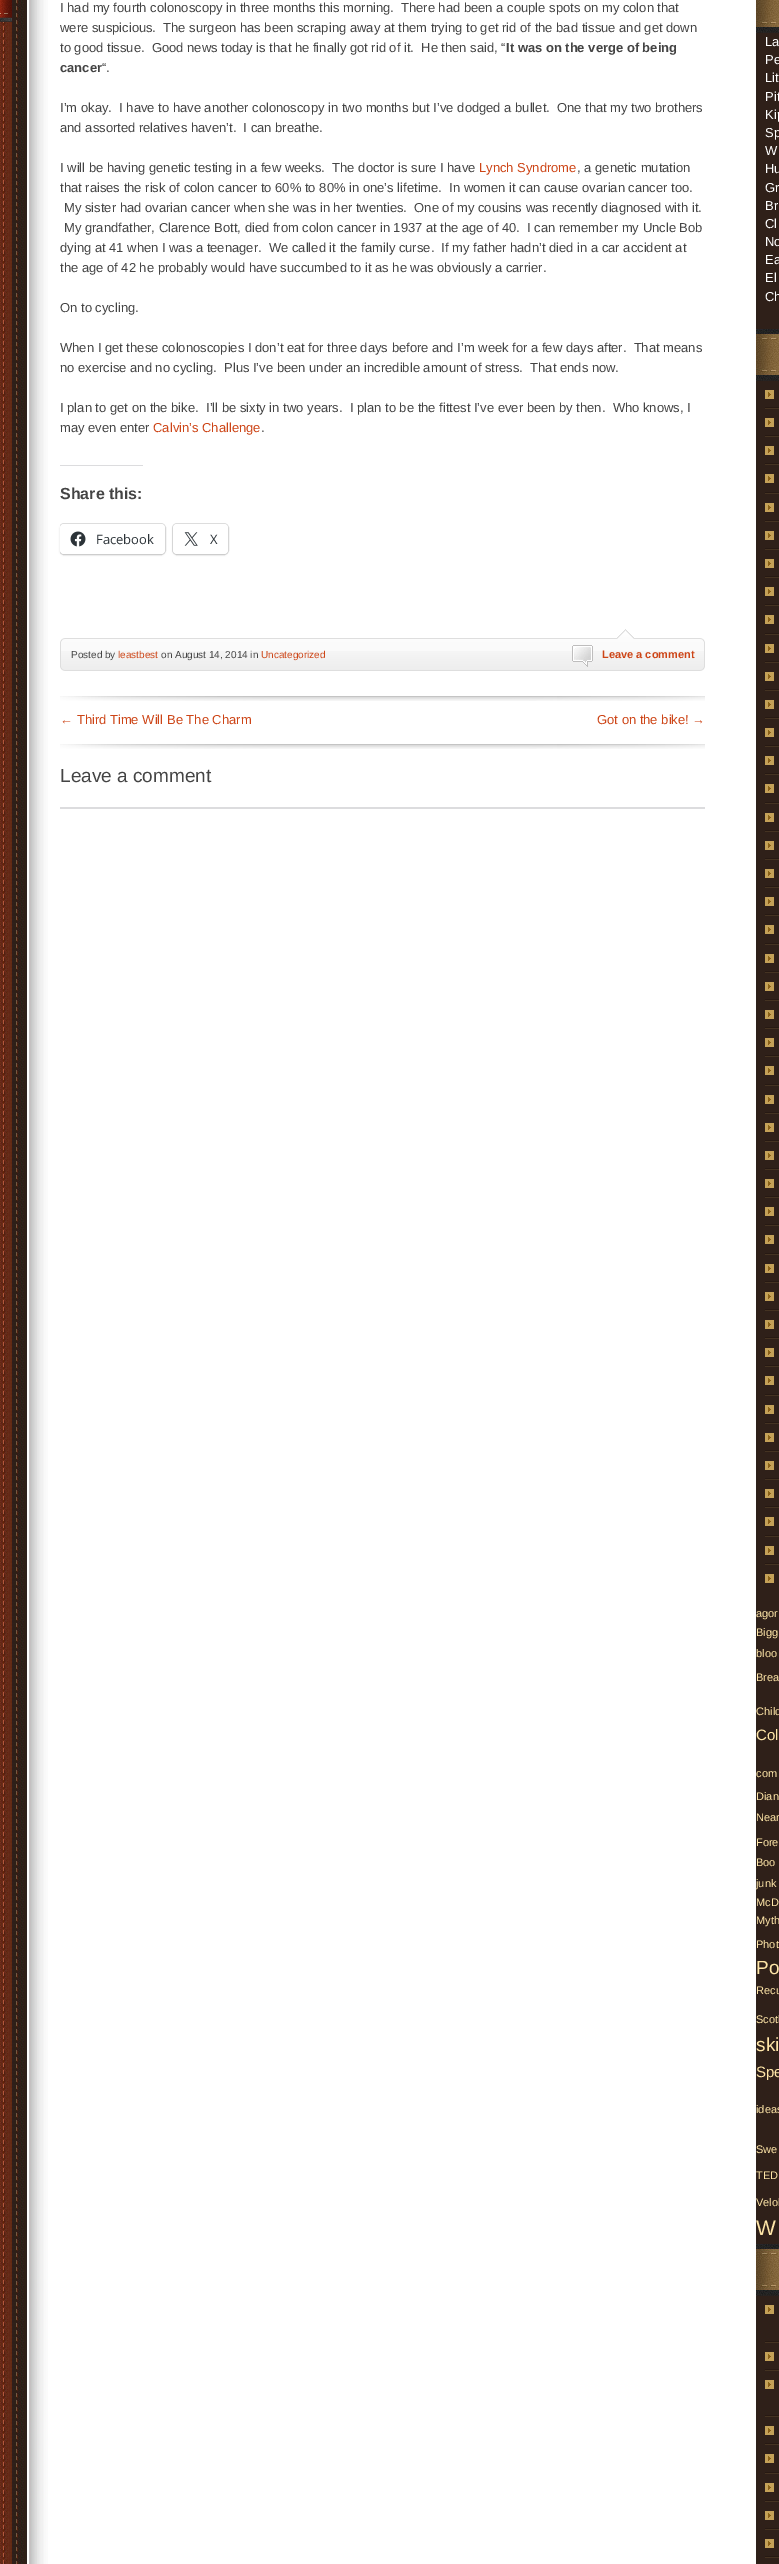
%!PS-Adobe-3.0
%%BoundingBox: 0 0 779 2564
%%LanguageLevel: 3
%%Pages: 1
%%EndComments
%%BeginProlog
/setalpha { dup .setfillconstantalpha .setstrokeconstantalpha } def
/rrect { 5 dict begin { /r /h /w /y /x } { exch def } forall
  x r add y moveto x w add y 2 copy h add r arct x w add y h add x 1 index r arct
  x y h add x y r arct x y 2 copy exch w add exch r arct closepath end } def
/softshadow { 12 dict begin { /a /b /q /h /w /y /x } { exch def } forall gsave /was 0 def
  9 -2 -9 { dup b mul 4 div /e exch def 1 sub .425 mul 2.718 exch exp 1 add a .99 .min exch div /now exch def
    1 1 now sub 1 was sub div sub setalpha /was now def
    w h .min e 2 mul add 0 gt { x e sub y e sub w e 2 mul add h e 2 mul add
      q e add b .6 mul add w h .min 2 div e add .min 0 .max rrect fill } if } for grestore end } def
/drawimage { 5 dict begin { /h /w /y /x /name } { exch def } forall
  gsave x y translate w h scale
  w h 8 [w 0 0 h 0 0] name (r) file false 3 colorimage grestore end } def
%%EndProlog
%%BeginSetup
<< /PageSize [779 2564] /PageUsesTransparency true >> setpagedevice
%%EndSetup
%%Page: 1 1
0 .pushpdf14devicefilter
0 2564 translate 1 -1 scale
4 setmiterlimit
1 setgray
0 0 779 2564 rectfill
(images/1.raw) 0 0 779 2564 drawimage
(images/2.raw) 60 696 645 5 drawimage
(images/3.raw) 0 0 12 22 drawimage
0.863 0.863 0.871 setrgbcolor
60 465 83 1 rectfill
gsave
60 0 645 629 rectclip
0.878 setgray
59.5 523.5 106 31 4.5 rrect stroke
grestore
0 setgray
60 525 105 30 4 1 0.12 softshadow
1 setgray
60 524 105 30 4 rrect fill
(images/4.raw) 70 531 16 16 drawimage
0.878 setgray
172.5 523.5 56 31 4.5 rrect stroke
0 setgray
173 525 55 30 4 1 0.12 softshadow
1 setgray
173 524 55 30 4 rrect fill
(images/5.raw) 184 532 14 14 drawimage
(images/6.raw) 60 629 645 13 drawimage
0.98 setgray
61 642 643 9 rectfill
(images/7.raw) 61 651 643 16 drawimage
0.871 setgray
704 642 1 25 rectfill
60 642 1 25 rectfill
(images/8.raw) 572 645 21 22 drawimage
(images/9.raw) 60 667 645 4 drawimage
(images/2.raw) 60 744 645 5 drawimage
0.863 0.863 0.871 setrgbcolor
60 807 645 2 rectfill
(images/10.raw) 756 0 23 33 drawimage
(images/11.raw) 756 329 23 52 drawimage
(images/12.raw) 765 390 9 9 drawimage
0.153 0.098 0.075 setrgbcolor
765 407 14 1 rectfill
(images/12.raw) 765 418 9 9 drawimage
0.271 0.2 0.133 setrgbcolor
765 408 14 1 rectfill
0.153 0.098 0.075 setrgbcolor
765 435 14 1 rectfill
(images/12.raw) 765 446 9 9 drawimage
0.271 0.2 0.133 setrgbcolor
765 436 14 1 rectfill
0.153 0.098 0.075 setrgbcolor
765 463 14 1 rectfill
(images/12.raw) 765 474 9 9 drawimage
0.271 0.2 0.133 setrgbcolor
765 464 14 1 rectfill
0.153 0.098 0.075 setrgbcolor
765 492 14 1 rectfill
(images/12.raw) 765 503 9 9 drawimage
0.271 0.2 0.133 setrgbcolor
765 493 14 1 rectfill
0.153 0.098 0.075 setrgbcolor
765 520 14 1 rectfill
(images/12.raw) 765 531 9 9 drawimage
0.271 0.2 0.133 setrgbcolor
765 521 14 1 rectfill
0.153 0.098 0.075 setrgbcolor
765 548 14 1 rectfill
(images/12.raw) 765 559 9 9 drawimage
0.271 0.2 0.133 setrgbcolor
765 549 14 1 rectfill
0.153 0.098 0.075 setrgbcolor
765 576 14 1 rectfill
(images/12.raw) 765 587 9 9 drawimage
0.271 0.2 0.133 setrgbcolor
765 577 14 1 rectfill
0.153 0.098 0.075 setrgbcolor
765 604 14 1 rectfill
(images/12.raw) 765 615 9 9 drawimage
0.271 0.2 0.133 setrgbcolor
765 605 14 1 rectfill
0.153 0.098 0.075 setrgbcolor
765 633 14 1 rectfill
(images/12.raw) 765 644 9 9 drawimage
0.271 0.2 0.133 setrgbcolor
765 634 14 1 rectfill
0.153 0.098 0.075 setrgbcolor
765 661 14 1 rectfill
(images/12.raw) 765 672 9 9 drawimage
0.271 0.2 0.133 setrgbcolor
765 662 14 1 rectfill
0.153 0.098 0.075 setrgbcolor
765 689 14 1 rectfill
(images/12.raw) 765 700 9 9 drawimage
0.271 0.2 0.133 setrgbcolor
765 690 14 1 rectfill
0.153 0.098 0.075 setrgbcolor
765 717 14 1 rectfill
(images/12.raw) 765 728 9 9 drawimage
0.271 0.2 0.133 setrgbcolor
765 718 14 1 rectfill
0.153 0.098 0.075 setrgbcolor
765 745 14 1 rectfill
(images/12.raw) 765 756 9 9 drawimage
0.271 0.2 0.133 setrgbcolor
765 746 14 1 rectfill
0.153 0.098 0.075 setrgbcolor
765 773 14 1 rectfill
(images/12.raw) 765 784 9 9 drawimage
0.271 0.2 0.133 setrgbcolor
765 774 14 1 rectfill
0.153 0.098 0.075 setrgbcolor
765 802 14 1 rectfill
(images/12.raw) 765 813 9 9 drawimage
0.271 0.2 0.133 setrgbcolor
765 803 14 1 rectfill
0.153 0.098 0.075 setrgbcolor
765 830 14 1 rectfill
(images/12.raw) 765 841 9 9 drawimage
0.271 0.2 0.133 setrgbcolor
765 831 14 1 rectfill
0.153 0.098 0.075 setrgbcolor
765 858 14 1 rectfill
(images/12.raw) 765 869 9 9 drawimage
0.271 0.2 0.133 setrgbcolor
765 859 14 1 rectfill
0.153 0.098 0.075 setrgbcolor
765 886 14 1 rectfill
(images/12.raw) 765 897 9 9 drawimage
0.271 0.2 0.133 setrgbcolor
765 887 14 1 rectfill
0.153 0.098 0.075 setrgbcolor
765 914 14 1 rectfill
(images/12.raw) 765 925 9 9 drawimage
0.271 0.2 0.133 setrgbcolor
765 915 14 1 rectfill
0.153 0.098 0.075 setrgbcolor
765 943 14 1 rectfill
(images/12.raw) 765 954 9 9 drawimage
0.271 0.2 0.133 setrgbcolor
765 944 14 1 rectfill
0.153 0.098 0.075 setrgbcolor
765 971 14 1 rectfill
(images/12.raw) 765 982 9 9 drawimage
0.271 0.2 0.133 setrgbcolor
765 972 14 1 rectfill
0.153 0.098 0.075 setrgbcolor
765 999 14 1 rectfill
(images/12.raw) 765 1010 9 9 drawimage
0.271 0.2 0.133 setrgbcolor
765 1000 14 1 rectfill
0.153 0.098 0.075 setrgbcolor
765 1027 14 1 rectfill
(images/12.raw) 765 1038 9 9 drawimage
0.271 0.2 0.133 setrgbcolor
765 1028 14 1 rectfill
0.153 0.098 0.075 setrgbcolor
765 1055 14 1 rectfill
(images/12.raw) 765 1066 9 9 drawimage
0.271 0.2 0.133 setrgbcolor
765 1056 14 1 rectfill
0.153 0.098 0.075 setrgbcolor
765 1084 14 1 rectfill
(images/12.raw) 765 1095 9 9 drawimage
0.271 0.2 0.133 setrgbcolor
765 1085 14 1 rectfill
0.153 0.098 0.075 setrgbcolor
765 1112 14 1 rectfill
(images/12.raw) 765 1123 9 9 drawimage
0.271 0.2 0.133 setrgbcolor
765 1113 14 1 rectfill
0.153 0.098 0.075 setrgbcolor
765 1140 14 1 rectfill
(images/12.raw) 765 1151 9 9 drawimage
0.271 0.2 0.133 setrgbcolor
765 1141 14 1 rectfill
0.153 0.098 0.075 setrgbcolor
765 1168 14 1 rectfill
(images/12.raw) 765 1179 9 9 drawimage
0.271 0.2 0.133 setrgbcolor
765 1169 14 1 rectfill
0.153 0.098 0.075 setrgbcolor
765 1196 14 1 rectfill
(images/12.raw) 765 1207 9 9 drawimage
0.271 0.2 0.133 setrgbcolor
765 1197 14 1 rectfill
0.153 0.098 0.075 setrgbcolor
765 1224 14 1 rectfill
(images/12.raw) 765 1235 9 9 drawimage
0.271 0.2 0.133 setrgbcolor
765 1225 14 1 rectfill
0.153 0.098 0.075 setrgbcolor
765 1253 14 1 rectfill
(images/12.raw) 765 1264 9 9 drawimage
0.271 0.2 0.133 setrgbcolor
765 1254 14 1 rectfill
0.153 0.098 0.075 setrgbcolor
765 1281 14 1 rectfill
(images/12.raw) 765 1292 9 9 drawimage
0.271 0.2 0.133 setrgbcolor
765 1282 14 1 rectfill
0.153 0.098 0.075 setrgbcolor
765 1309 14 1 rectfill
(images/12.raw) 765 1320 9 9 drawimage
0.271 0.2 0.133 setrgbcolor
765 1310 14 1 rectfill
0.153 0.098 0.075 setrgbcolor
765 1337 14 1 rectfill
(images/12.raw) 765 1348 9 9 drawimage
0.271 0.2 0.133 setrgbcolor
765 1338 14 1 rectfill
0.153 0.098 0.075 setrgbcolor
765 1365 14 1 rectfill
(images/12.raw) 765 1376 9 9 drawimage
0.271 0.2 0.133 setrgbcolor
765 1366 14 1 rectfill
0.153 0.098 0.075 setrgbcolor
765 1394 14 1 rectfill
(images/12.raw) 765 1405 9 9 drawimage
0.271 0.2 0.133 setrgbcolor
765 1395 14 1 rectfill
0.153 0.098 0.075 setrgbcolor
765 1422 14 1 rectfill
(images/12.raw) 765 1433 9 9 drawimage
0.271 0.2 0.133 setrgbcolor
765 1423 14 1 rectfill
0.153 0.098 0.075 setrgbcolor
765 1450 14 1 rectfill
(images/12.raw) 765 1461 9 9 drawimage
0.271 0.2 0.133 setrgbcolor
765 1451 14 1 rectfill
0.153 0.098 0.075 setrgbcolor
765 1478 14 1 rectfill
(images/12.raw) 765 1489 9 9 drawimage
0.271 0.2 0.133 setrgbcolor
765 1479 14 1 rectfill
0.153 0.098 0.075 setrgbcolor
765 1506 14 1 rectfill
(images/12.raw) 765 1517 9 9 drawimage
0.271 0.2 0.133 setrgbcolor
765 1507 14 1 rectfill
0.153 0.098 0.075 setrgbcolor
765 1535 14 1 rectfill
(images/12.raw) 765 1546 9 9 drawimage
0.271 0.2 0.133 setrgbcolor
765 1536 14 1 rectfill
0.153 0.098 0.075 setrgbcolor
765 1563 14 1 rectfill
(images/12.raw) 765 1574 9 9 drawimage
0.271 0.2 0.133 setrgbcolor
765 1564 14 1 rectfill
(images/11.raw) 756 2244 23 52 drawimage
(images/12.raw) 765 2305 9 9 drawimage
0.153 0.098 0.075 setrgbcolor
765 2341 14 1 rectfill
(images/12.raw) 765 2352 9 9 drawimage
0.271 0.2 0.133 setrgbcolor
765 2342 14 1 rectfill
0.153 0.098 0.075 setrgbcolor
765 2369 14 1 rectfill
(images/12.raw) 765 2380 9 9 drawimage
0.271 0.2 0.133 setrgbcolor
765 2370 14 1 rectfill
0.153 0.098 0.075 setrgbcolor
765 2415 14 1 rectfill
(images/12.raw) 765 2426 9 9 drawimage
0.271 0.2 0.133 setrgbcolor
765 2416 14 1 rectfill
0.153 0.098 0.075 setrgbcolor
765 2443 14 1 rectfill
(images/12.raw) 765 2454 9 9 drawimage
0.271 0.2 0.133 setrgbcolor
765 2444 14 1 rectfill
0.153 0.098 0.075 setrgbcolor
765 2472 14 1 rectfill
(images/12.raw) 765 2483 9 9 drawimage
0.271 0.2 0.133 setrgbcolor
765 2473 14 1 rectfill
0.153 0.098 0.075 setrgbcolor
765 2500 14 1 rectfill
(images/12.raw) 765 2511 9 9 drawimage
0.271 0.2 0.133 setrgbcolor
765 2501 14 1 rectfill
0.153 0.098 0.075 setrgbcolor
765 2528 14 1 rectfill
(images/12.raw) 765 2539 9 9 drawimage
0.271 0.2 0.133 setrgbcolor
765 2529 14 1 rectfill
0.153 0.098 0.075 setrgbcolor
765 2556 14 1 rectfill
0.271 0.2 0.133 setrgbcolor
765 2557 14 1 rectfill
/LiberationSans-Regular [13 0 0 -13 0 0] selectfont
0.267 setgray
60 12 moveto (I had my fourth colonoscopy in three months this morning.  There had been a couple spots on my colon that) show
60 32 moveto (were suspicious.  The surgeon has been scraping away at them trying to get rid of the bad tissue and get down) show
60 52 moveto (to good tissue.  Good news today is that he finally got rid of it.  He then said, “) show
/LiberationSans-Bold [13 0 0 -13 0 0] selectfont
506 52 moveto (It was on the verge of being) show
60 72 moveto (cancer) show
/LiberationSans-Regular [13 0 0 -13 0 0] selectfont
102 72 moveto (“.) show
60 112 moveto (I’m okay.  I have to have another colonoscopy in two months but I’ve dodged a bullet.  One that my two brothers) show
60 132 moveto (and assorted relatives haven’t.  I can breathe.) show
60 172 moveto (I will be having genetic testing in a few weeks.  The doctor is sure I have) show
0.804 0.271 0.09 setrgbcolor
479 172 moveto (Lynch Syndrome) show
0.267 setgray
577 172 moveto (, a genetic mutation) show
60 192 moveto (that raises the risk of colon cancer to 60% to 80% in one’s lifetime.  In women it can cause ovarian cancer too.) show
64 212 moveto (My sister had ovarian cancer when she was in her twenties.  One of my cousins was recently diagnosed with it.) show
64 232 moveto (My grandfather, Clarence Bott, died from colon cancer in 1937 at the age of 40.  I can remember my Uncle Bob) show
60 252 moveto (dying at 41 when I was a teenager.  We called it the family curse.  If my father hadn’t died in a car accident at) show
60 272 moveto (the age of 42 he probably would have succumbed to it as he was obviously a carrier.) show
60 312 moveto (On to cycling.) show
60 352 moveto (When I get these colonoscopies I don’t eat for three days before and I’m week for a few days after.  That means) show
60 372 moveto (no exercise and no cycling.  Plus I’ve been under an incredible amount of stress.  That ends now.) show
60 412 moveto (I plan to get on the bike.  I’ll be sixty in two years.  I plan to be the fittest I’ve ever been by then.  Who knows, I) show
60 432 moveto (may even enter) show
0.804 0.271 0.09 setrgbcolor
153 432 moveto (Calvin’s Challenge) show
0.267 setgray
261 432 moveto (.) show
/LiberationSans-Bold [16 0 0 -16 0 0] selectfont
60 499 moveto (Share this:) show
/OpenSans-Regular [13 0 0 -13 0 0] selectfont
0.173 0.2 0.22 setrgbcolor
96 544 moveto (Facebook) show
210 544 moveto (X) show
/LiberationSans-Regular [10 0 0 -10 0 0] selectfont
0.267 setgray
71 658 moveto (Posted by) show
0.804 0.271 0.09 setrgbcolor
118 658 moveto (leastbest) show
0.267 setgray
161 658 moveto (on August 14, 2014 in) show
0.804 0.271 0.09 setrgbcolor
261 658 moveto (Uncategorized) show
/LiberationSans-Bold [11 0 0 -11 0 0] selectfont
602 658 moveto (Leave a comment) show
/LiberationSans-Regular [13 0 0 -13 0 0] selectfont
60 724 moveto (← Third Time Will Be The Charm) show
597 724 moveto (Got on the bike! →) show
/LiberationSans-Regular [19 0 0 -19 0 0] selectfont
0.267 setgray
60 782 moveto (Leave a comment) show
/LiberationSans-Regular [13 0 0 -13 0 0] selectfont
1 setgray
765 46 moveto (La) show
765 64 moveto (Pe) show
765 82 moveto (Lit) show
765 101 moveto (Pit) show
765 119 moveto (Kip) show
765 137 moveto (Sp) show
765 155 moveto (W) show
765 173 moveto (Hu) show
765 192 moveto (Gr) show
765 210 moveto (Br) show
765 228 moveto (Cl) show
765 246 moveto (No) show
765 264 moveto (Ea) show
765 282 moveto (El) show
765 301 moveto (Ch) show
/LiberationSans-Regular [11 0 0 -11 0 0] selectfont
1 0.902 0.659 setrgbcolor
756 1617 moveto (agor) show
756 1636 moveto (Bigg) show
756 1657 moveto (bloo) show
756 1681 moveto (Brea) show
756 1715 moveto (Child) show
/LiberationSans-Regular [15 0 0 -15 0 0] selectfont
756 1740 moveto (Col) show
/LiberationSans-Regular [11 0 0 -11 0 0] selectfont
756 1777 moveto (com) show
756 1800 moveto (Dian) show
756 1821 moveto (Near) show
756 1846 moveto (Fore) show
756 1866 moveto (Boo) show
756 1887 moveto (junk) show
756 1906 moveto (McD) show
756 1924 moveto (Myth) show
756 1948 moveto (Phot) show
/LiberationSans-Regular [19 0 0 -19 0 0] selectfont
756 1974 moveto (Po) show
/LiberationSans-Regular [11 0 0 -11 0 0] selectfont
756 1994 moveto (Recu) show
756 2023 moveto (Scotl) show
/LiberationSans-Regular [19 0 0 -19 0 0] selectfont
756 2051 moveto (ski) show
/LiberationSans-Regular [15 0 0 -15 0 0] selectfont
756 2077 moveto (Spe) show
/LiberationSans-Regular [11 0 0 -11 0 0] selectfont
756 2113 moveto (ideas) show
756 2153 moveto (Swe) show
756 2179 moveto (TED) show
756 2206 moveto (Velok) show
/LiberationSans-Regular [21 0 0 -21 0 0] selectfont
756 2235 moveto (W) show
.poppdf14devicefilter showpage
%%EOF
